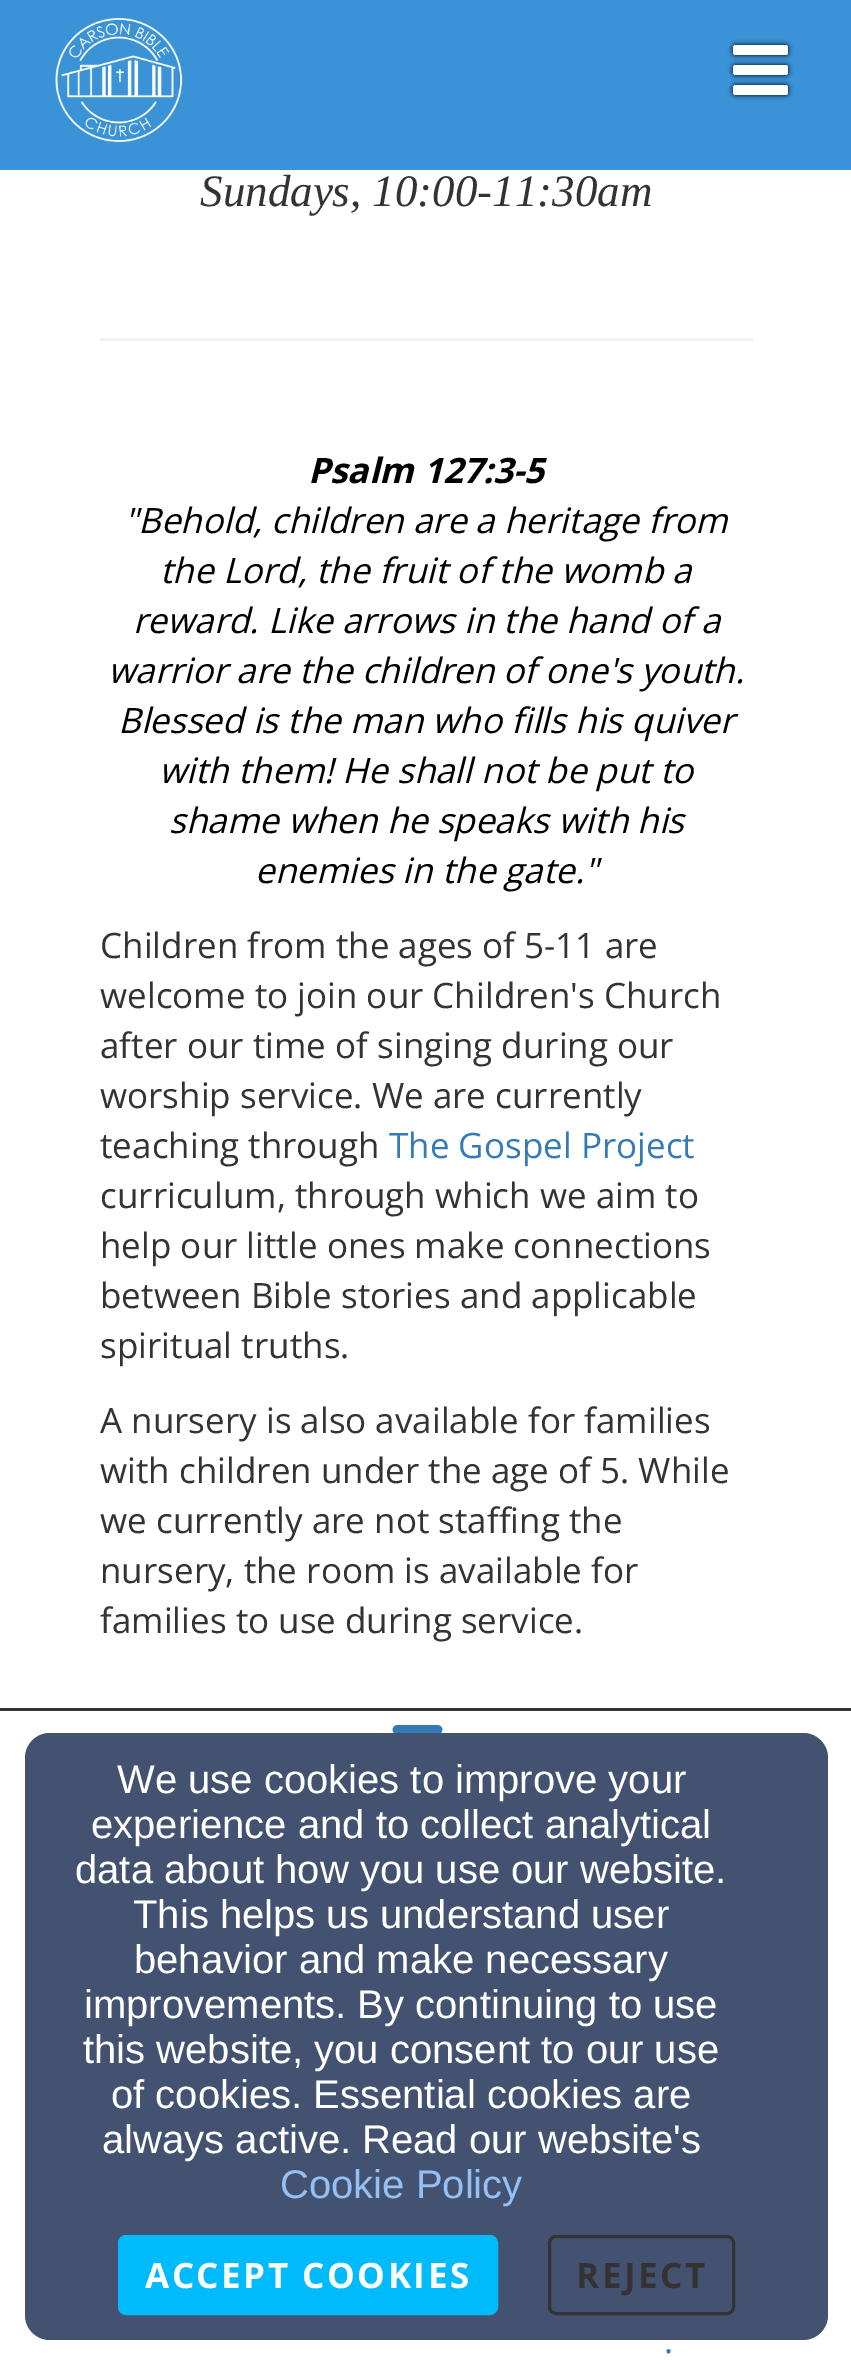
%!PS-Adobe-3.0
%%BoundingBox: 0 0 851 2364
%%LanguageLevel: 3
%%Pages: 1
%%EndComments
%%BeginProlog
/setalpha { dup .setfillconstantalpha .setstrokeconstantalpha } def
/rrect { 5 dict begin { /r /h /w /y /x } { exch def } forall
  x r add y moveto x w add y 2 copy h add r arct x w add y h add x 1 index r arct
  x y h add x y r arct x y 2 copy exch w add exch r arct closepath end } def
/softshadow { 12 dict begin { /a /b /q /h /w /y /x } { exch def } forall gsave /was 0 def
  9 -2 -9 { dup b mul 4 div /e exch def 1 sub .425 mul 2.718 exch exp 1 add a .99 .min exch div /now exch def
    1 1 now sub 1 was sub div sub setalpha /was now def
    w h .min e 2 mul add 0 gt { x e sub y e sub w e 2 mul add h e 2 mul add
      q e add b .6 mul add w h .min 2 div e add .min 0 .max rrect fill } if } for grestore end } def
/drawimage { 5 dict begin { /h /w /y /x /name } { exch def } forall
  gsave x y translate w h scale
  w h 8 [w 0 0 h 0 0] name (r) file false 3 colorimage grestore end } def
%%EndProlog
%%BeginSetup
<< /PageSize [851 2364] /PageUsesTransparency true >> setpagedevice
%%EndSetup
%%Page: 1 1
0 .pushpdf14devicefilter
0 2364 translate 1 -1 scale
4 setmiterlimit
1 setgray
0 0 851 2364 rectfill
0.227 0.573 0.843 setrgbcolor
0 0 851 170 rectfill
(images/1.raw) 55 18 128 124 drawimage
0 setgray
733 45 55 10 2.5 2.5 1 softshadow
1 setgray
733 45 55 10 2.5 rrect fill
0 setgray
733 65 55 10 2.5 2.5 1 softshadow
1 setgray
733 65 55 10 2.5 rrect fill
0 setgray
733 85 55 10 2.5 2.5 1 softshadow
1 setgray
733 85 55 10 2.5 rrect fill
0.945 0.945 0.949 setrgbcolor
100 338 653 3 rectfill
0.263 0.322 0.439 setrgbcolor
25 1733 803 607 25 rrect fill
0 0.733 0.988 setrgbcolor
119.5 2236.5 377 77 6.5 rrect gsave fill grestore
3 setlinewidth
stroke
0.2 setgray
549.5 2236.5 184 77 6.5 rrect stroke
0 1708 851 3 rectfill
(images/2.raw) 392 1725 51 8 drawimage
/LiberationSerif-Italic [45 0 0 -45 0 0] selectfont
200 206 moveto (Sundays, 10:00-11:30am) show
/OpenSans-BoldItalic [35 0 0 -35 0 0] selectfont
0 setgray
308 483 moveto (Psalm 127:3-5) show
/OpenSans-Italic [35 0 0 -35 0 0] selectfont
124 533 moveto ("Behold, children are a heritage from) show
160 583 moveto (the Lord, the fruit of the womb a) show
133 633 moveto (reward. Like arrows in the hand of a) show
108 683 moveto (warrior are the children of one's youth.) show
118 733 moveto (Blessed is the man who fills his quiver) show
159 783 moveto (with them! He shall not be put to) show
169 833 moveto (shame when he speaks with his) show
255 883 moveto (enemies in the gate.") show
/OpenSans-Regular [35 0 0 -35 0 0] selectfont
0.2 setgray
100 958 moveto (Children from the ages of 5-11 are) show
100 1008 moveto (welcome to join our Children's Church) show
100 1058 moveto (after our time of singing during our) show
100 1108 moveto (worship service. We are currently) show
100 1158 moveto (teaching through) show
0.2 0.478 0.718 setrgbcolor
389 1158 moveto (The Gospel Project) show
0.2 setgray
100 1208 moveto (curriculum, through which we aim to) show
100 1258 moveto (help our little ones make connections) show
100 1308 moveto (between Bible stories and applicable) show
100 1358 moveto (spiritual truths.) show
100 1433 moveto (A nursery is also available for families) show
100 1483 moveto (with children under the age of 5. While) show
100 1533 moveto (we currently are not staffing the) show
100 1583 moveto (nursery, the room is available for) show
100 1633 moveto (families to use during service.) show
/LiberationSans-Regular [40 0 0 -40 0 0] selectfont
1 setgray
117 1793 moveto (We use cookies to improve your) show
91 1838 moveto (experience and to collect analytical) show
75 1883 moveto (data about how you use our website.) show
133 1928 moveto (This helps us understand user) show
134 1973 moveto (behavior and make necessary) show
84 2018 moveto (improvements. By continuing to use) show
83 2063 moveto (this website, you consent to our use) show
111 2108 moveto (of cookies. Essential cookies are) show
102 2153 moveto (always active. Read our website's) show
0.58 0.753 0.953 setrgbcolor
280 2198 moveto (Cookie Policy) show
/OpenSans-Bold [35 0 0 -35 0 0] selectfont
1 setgray
145 2288 moveto 2.5 0 (ACCEPT COOKIES) ashow
0.2 setgray
576 2288 moveto 2.5 0 (REJECT) ashow
/OpenSans-Regular [35 0 0 -35 0 0] selectfont
0.2 0.478 0.718 setrgbcolor
664 2353 moveto (.) show
.poppdf14devicefilter showpage
%%EOF
